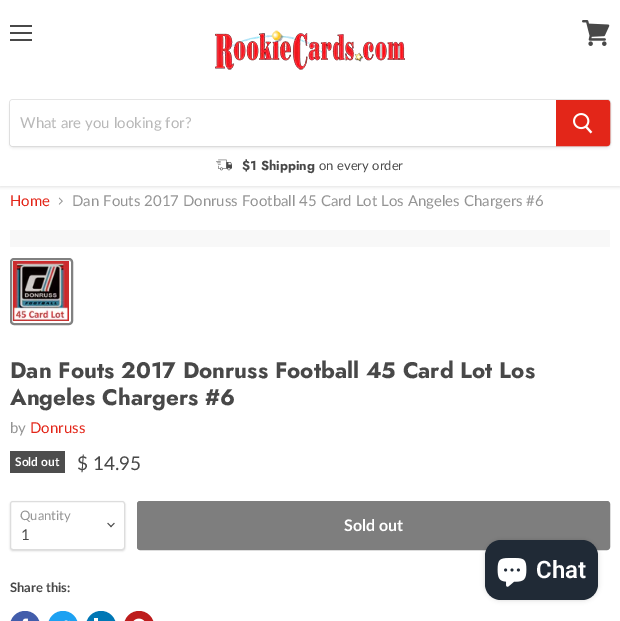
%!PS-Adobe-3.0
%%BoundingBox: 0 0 620 621
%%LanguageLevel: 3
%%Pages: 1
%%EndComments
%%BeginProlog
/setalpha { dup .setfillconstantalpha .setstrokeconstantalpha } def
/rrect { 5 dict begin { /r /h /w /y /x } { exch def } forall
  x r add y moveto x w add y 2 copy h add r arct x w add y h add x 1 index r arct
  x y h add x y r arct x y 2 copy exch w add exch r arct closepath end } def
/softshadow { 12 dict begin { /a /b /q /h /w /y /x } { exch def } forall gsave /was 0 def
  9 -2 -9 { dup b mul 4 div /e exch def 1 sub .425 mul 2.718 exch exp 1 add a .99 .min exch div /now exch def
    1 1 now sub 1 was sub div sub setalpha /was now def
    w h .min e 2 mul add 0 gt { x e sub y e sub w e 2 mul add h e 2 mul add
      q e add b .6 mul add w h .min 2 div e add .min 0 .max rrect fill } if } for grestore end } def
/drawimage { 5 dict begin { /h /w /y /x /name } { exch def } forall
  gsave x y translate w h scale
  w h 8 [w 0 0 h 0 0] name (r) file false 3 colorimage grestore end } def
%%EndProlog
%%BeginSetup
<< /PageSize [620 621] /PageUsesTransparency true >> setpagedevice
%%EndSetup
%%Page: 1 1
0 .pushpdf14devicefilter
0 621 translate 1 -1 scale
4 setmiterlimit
1 setgray
0 0 620 621 rectfill
gsave
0 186 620 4 rectclip
0.502 setgray
0 1 620 186 0 2 0.25 softshadow
grestore
0.282 setgray
10 25 22 2 rectfill
10 32 22 2 rectfill
10 39 22 2 rectfill
(images/1.raw) 582 20 28 26 drawimage
(images/2.raw) 215 30 190 40 drawimage
0.502 setgray
9 101 602 48 4 1.5 0.11 softshadow
0.2 setalpha
9.5 99.5 601 47 3.5 rrect stroke
1 setalpha
1 setgray
newpath 13 100 moveto 556 100 lineto 556 146 lineto 13 146 lineto 11.5 146 10 144.5 10 143 curveto 10 103 lineto 10 101.5 11.5 100 13 100 curveto closepath fill
0.89 0.149 0.098 setrgbcolor
newpath 556.5 100.5 moveto 607 100.5 lineto 608.5 100.5 609.5 101.5 609.5 103 curveto 609.5 143 lineto 609.5 144.5 608.5 145.5 607 145.5 curveto 556.5 145.5 lineto closepath gsave fill grestore
stroke
(images/3.raw) 573 113 20 21 drawimage
(images/4.raw) 216 159 16 12 drawimage
(images/5.raw) 58 197 5 8 drawimage
0.973 setgray
10 230 600 17 rectfill
0.506 setgray
2 setlinewidth
11 259 61 65 3 rrect stroke
(images/6.raw) 13 261 56 60 drawimage
0.302 setgray
10 451 55 22 rectfill
0 setgray
10 502 115 49 3 1 0.15 softshadow
1 setgray
10.5 501.5 114 48 2.5 rrect gsave fill grestore
0.867 setgray
1 setlinewidth
stroke
(images/7.raw) 107 522 8 6 drawimage
0.494 setgray
137.5 501.5 472 48 2.5 rrect gsave fill grestore
stroke
0.259 0.365 0.671 setrgbcolor
10 611 30 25 15 rrect fill
(images/8.raw) 22 618 6 3 drawimage
0.114 0.631 0.949 setrgbcolor
48 611 30 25 15 rrect fill
(images/9.raw) 64 620 6 1 drawimage
0 0.467 0.71 setrgbcolor
86 611 30 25 15 rrect fill
1 setgray
94 618 4 3 rectfill
0.741 0.11 0.11 setrgbcolor
124 611 30 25 15 rrect fill
(images/10.raw) 133 618 12 3 drawimage
0 setgray
485 540 113 60 16 2.5 0.15 softshadow
0.125 0.165 0.212 setrgbcolor
485 540 113 60 16 rrect fill
(images/11.raw) 497 558 30 29 drawimage
/Lato-Regular [15 0 0 -15 0 0] selectfont
0.722 setgray
20 128 moveto (What are you looking for?) show
/Jost-Bold [13 0 0 -13 0 0] selectfont
0.282 setgray
242 170 moveto ($1 Shipping) show
/Lato-Regular [13 0 0 -13 0 0] selectfont
319 170 moveto (on every order) show
/Lato-Regular [15 0 0 -15 0 0] selectfont
0.89 0.149 0.098 setrgbcolor
10 206 moveto (Home) show
0.58 setgray
72 206 moveto (Dan Fouts 2017 Donruss Football 45 Card Lot Los Angeles Chargers #6) show
/Jost-Bold [22.5 0 0 -22.5 0 0] selectfont
0.282 setgray
10 378 moveto (Dan Fouts 2017 Donruss Football 45 Card Lot Los) show
10 405 moveto (Angeles Chargers #6) show
/Lato-Regular [15 0 0 -15 0 0] selectfont
0.58 setgray
10 433 moveto (by) show
0.89 0.149 0.098 setrgbcolor
30 433 moveto (Donruss) show
/Lato-Bold [12 0 0 -12 0 0] selectfont
1 setgray
15 466 moveto (Sold out) show
/Lato-Regular [19 0 0 -19 0 0] selectfont
0.282 setgray
77 470 moveto ($ 14.95) show
/Lato-Regular [13 0 0 -13 0 0] selectfont
0.58 setgray
20 520 moveto (Quantity) show
/Lato-Regular [15 0 0 -15 0 0] selectfont
0.282 setgray
21 540 moveto (1) show
/Lato-Bold [16 0 0 -16 0 0] selectfont
1 setgray
344 531 moveto (Sold out) show
/Lato-Bold [13 0 0 -13 0 0] selectfont
0.282 setgray
10 592 moveto (Share this:) show
/Roboto-SemiBold [24 0 0 -24 0 0] selectfont
1 setgray
536 578 moveto (Chat) show
.poppdf14devicefilter showpage
%%EOF
